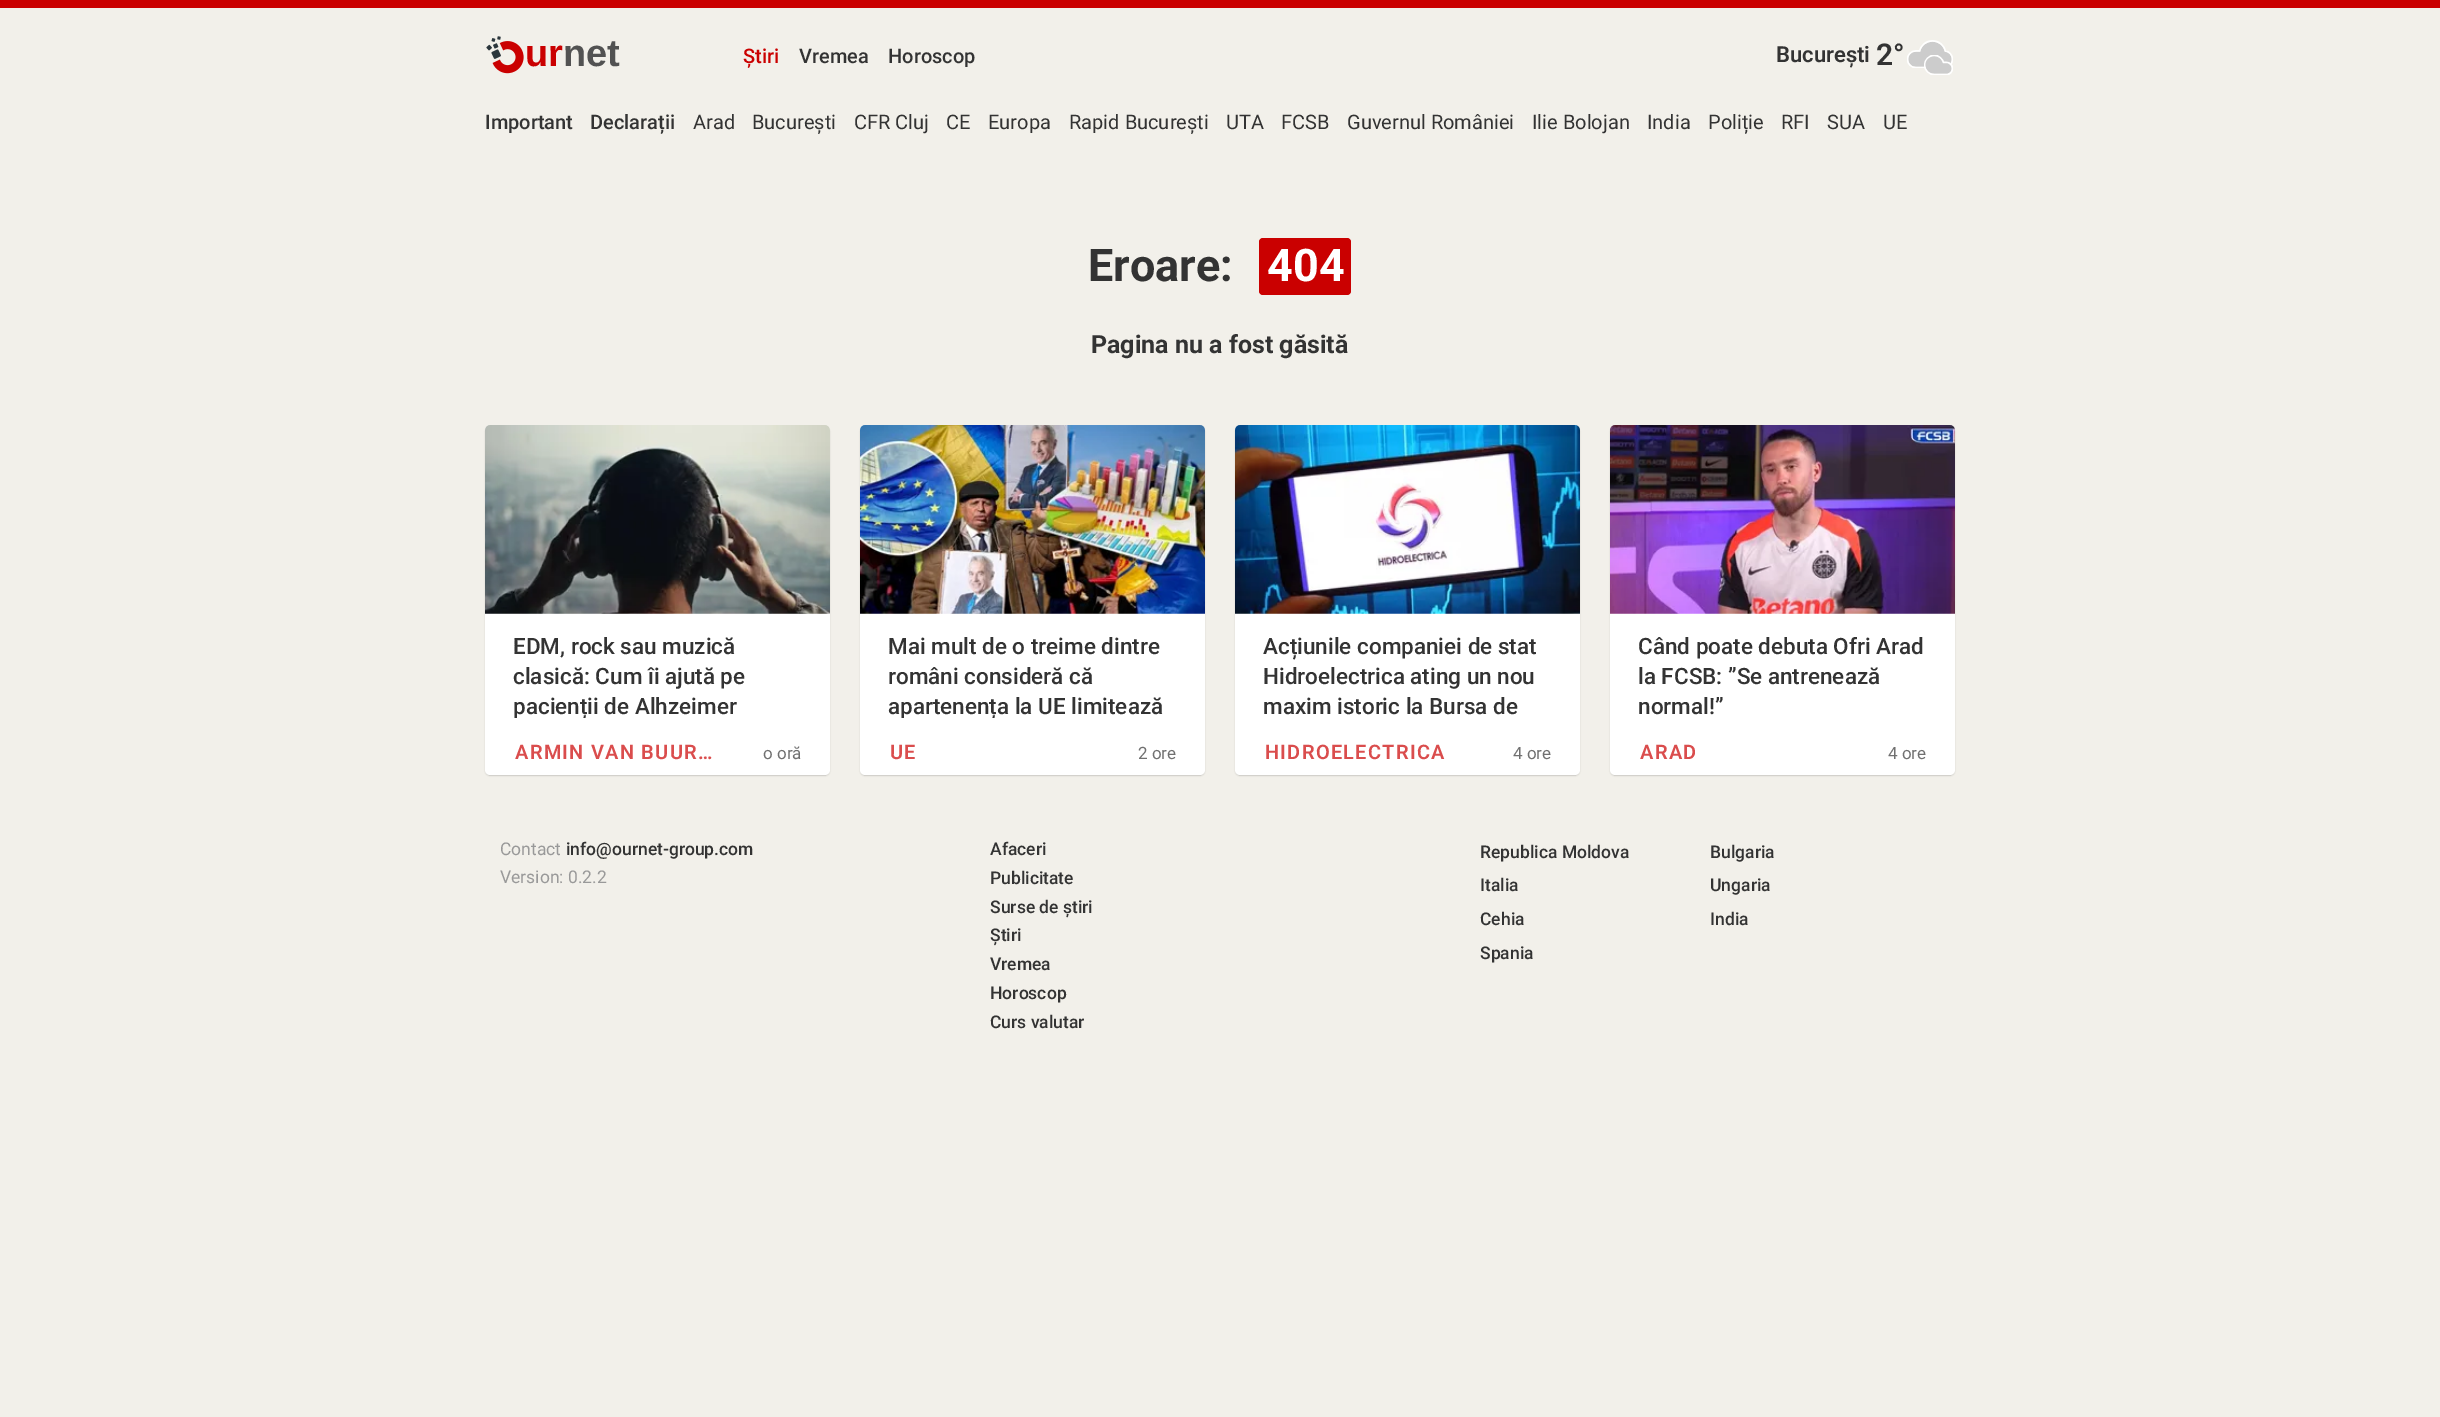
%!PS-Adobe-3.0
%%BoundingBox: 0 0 2440 1417
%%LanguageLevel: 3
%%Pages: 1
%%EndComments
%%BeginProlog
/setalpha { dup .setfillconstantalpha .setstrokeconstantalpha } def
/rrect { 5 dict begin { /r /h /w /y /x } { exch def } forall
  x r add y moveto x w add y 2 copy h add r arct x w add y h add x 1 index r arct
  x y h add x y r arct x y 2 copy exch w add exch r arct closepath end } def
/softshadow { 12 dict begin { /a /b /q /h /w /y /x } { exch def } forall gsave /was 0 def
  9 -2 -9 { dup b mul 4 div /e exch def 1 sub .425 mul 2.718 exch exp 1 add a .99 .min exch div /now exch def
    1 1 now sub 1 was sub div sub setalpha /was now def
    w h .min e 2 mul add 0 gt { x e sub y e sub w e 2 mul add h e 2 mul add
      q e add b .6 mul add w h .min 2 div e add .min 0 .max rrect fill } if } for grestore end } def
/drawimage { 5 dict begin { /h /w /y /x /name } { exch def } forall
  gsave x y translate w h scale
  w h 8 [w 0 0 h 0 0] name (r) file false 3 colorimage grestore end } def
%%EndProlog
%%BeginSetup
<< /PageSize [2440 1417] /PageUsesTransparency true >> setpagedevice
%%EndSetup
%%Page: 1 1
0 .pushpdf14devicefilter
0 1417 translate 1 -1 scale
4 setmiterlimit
0.949 0.941 0.918 setrgbcolor
0 0 2440 1417 rectfill
0.792 0 0 setrgbcolor
0 0 2440 8 rectfill
(images/1.raw) 486 36 38 38 drawimage
(images/2.raw) 1907 40 46 35 drawimage
1259 238 92 57 4 rrect fill
0 setgray
486 428 343 347 4 1 0.4 softshadow
1 setgray
485 425 345 350 5 rrect fill
(images/3.raw) 485 425 345 189 drawimage
0 setgray
861 428 343 347 4 1 0.4 softshadow
1 setgray
860 425 345 350 5 rrect fill
(images/4.raw) 860 425 345 189 drawimage
0 setgray
1236 428 343 347 4 1 0.4 softshadow
1 setgray
1235 425 345 350 5 rrect fill
(images/5.raw) 1235 425 345 189 drawimage
0 setgray
1611 428 343 347 4 1 0.4 softshadow
1 setgray
1610 425 345 350 5 rrect fill
(images/6.raw) 1610 425 345 189 drawimage
/LiberationSans-Bold [38 0 0 -38 0 0] selectfont
0.792 0 0 setrgbcolor
525 66 moveto (ur) show
0.322 setgray
563 66 moveto (net) show
/Roboto-Medium [20 0 0 -20 0 0] selectfont
0.792 0 0 setrgbcolor
743 63 moveto (Știri) show
0.2 setgray
799 63 moveto (Vremea) show
888 63 moveto (Horoscop) show
/Roboto-SemiBold [22 0 0 -22 0 0] selectfont
1776 62 moveto (București) show
/Roboto-SemiBold [30 0 0 -30 0 0] selectfont
1876 65 moveto (2°) show
/Roboto-Medium [20 0 0 -20 0 0] selectfont
485 129 moveto (Important) show
590 129 moveto (Declarații) show
/Roboto-Regular [20 0 0 -20 0 0] selectfont
693 129 moveto (Arad) show
752 129 moveto (București) show
854 129 moveto (CFR Cluj) show
946 129 moveto (CE) show
988 129 moveto (Europa) show
1069 129 moveto (Rapid București) show
1226 129 moveto (UTA) show
1281 129 moveto (FCSB) show
1347 129 moveto (Guvernul României) show
1532 129 moveto (Ilie Bolojan) show
1647 129 moveto (India) show
1708 129 moveto (Poliție) show
1781 129 moveto (RFI) show
1827 129 moveto (SUA) show
1883 129 moveto (UE) show
/Roboto-Bold [45 0 0 -45 0 0] selectfont
1088 281 moveto (Eroare:) show
1 setgray
1267 281 moveto (404) show
/Roboto-Bold [25 0 0 -25 0 0] selectfont
0.2 setgray
1091 353 moveto (Pagina nu a fost găsită) show
/Roboto-Medium [22.5 0 0 -22.5 0 0] selectfont
513 654 moveto (EDM, rock sau muzică) show
513 684 moveto (clasică: Cum îi ajută pe) show
gsave
513 631 292 87 rectclip
513 714 moveto (pacienții de Alhzeimer) show
grestore
/Roboto-SemiBold [20 0 0 -20 0 0] selectfont
0.855 0.302 0.302 setrgbcolor
515 759 moveto 1.25 0 (ARMIN VAN BUUR…) ashow
/Roboto-Regular [17 0 0 -17 0 0] selectfont
0.439 setgray
763 759 moveto (o oră) show
/Roboto-Medium [22.5 0 0 -22.5 0 0] selectfont
0.2 setgray
888 654 moveto (Mai mult de o treime dintre) show
888 684 moveto (români consideră că) show
gsave
888 631 292 87 rectclip
888 714 moveto (apartenența la UE limitează) show
grestore
/Roboto-SemiBold [20 0 0 -20 0 0] selectfont
0.855 0.302 0.302 setrgbcolor
890 759 moveto 1.25 0 (UE) ashow
/Roboto-Regular [17 0 0 -17 0 0] selectfont
0.439 setgray
1138 759 moveto (2 ore) show
/Roboto-Medium [22.5 0 0 -22.5 0 0] selectfont
0.2 setgray
1263 654 moveto (Acțiunile companiei de stat) show
1263 684 moveto (Hidroelectrica ating un nou) show
1263 714 moveto (maxim istoric la Bursa de) show
/Roboto-SemiBold [20 0 0 -20 0 0] selectfont
0.855 0.302 0.302 setrgbcolor
1265 759 moveto 1.25 0 (HIDROELECTRICA) ashow
/Roboto-Regular [17 0 0 -17 0 0] selectfont
0.439 setgray
1513 759 moveto (4 ore) show
/Roboto-Medium [22.5 0 0 -22.5 0 0] selectfont
0.2 setgray
1638 654 moveto (Când poate debuta Ofri Arad) show
1638 684 moveto (la FCSB: ”Se antrenează) show
1638 714 moveto (normal!”) show
/Roboto-SemiBold [20 0 0 -20 0 0] selectfont
0.855 0.302 0.302 setrgbcolor
1640 759 moveto 1.25 0 (ARAD) ashow
/Roboto-Regular [17 0 0 -17 0 0] selectfont
0.439 setgray
1888 759 moveto (4 ore) show
/Roboto-Regular [17.5 0 0 -17.5 0 0] selectfont
0.6 setgray
500 855 moveto (Contact) show
/Roboto-Medium [17.5 0 0 -17.5 0 0] selectfont
0.2 setgray
566 855 moveto (info@ournet-group.com) show
/Roboto-Regular [17.5 0 0 -17.5 0 0] selectfont
0.6 setgray
500 883 moveto (Version: 0.2.2) show
/Roboto-Medium [17.5 0 0 -17.5 0 0] selectfont
0.2 setgray
990 855 moveto (Afaceri) show
990 884 moveto (Publicitate) show
990 913 moveto (Surse de știri) show
990 941 moveto (Știri) show
990 970 moveto (Vremea) show
990 999 moveto (Horoscop) show
990 1028 moveto (Curs valutar) show
1480 858 moveto (Republica Moldova) show
1710 858 moveto (Bulgaria) show
1480 891 moveto (Italia) show
1710 891 moveto (Ungaria) show
1480 925 moveto (Cehia) show
1710 925 moveto (India) show
1480 959 moveto (Spania) show
.poppdf14devicefilter showpage
%%EOF
